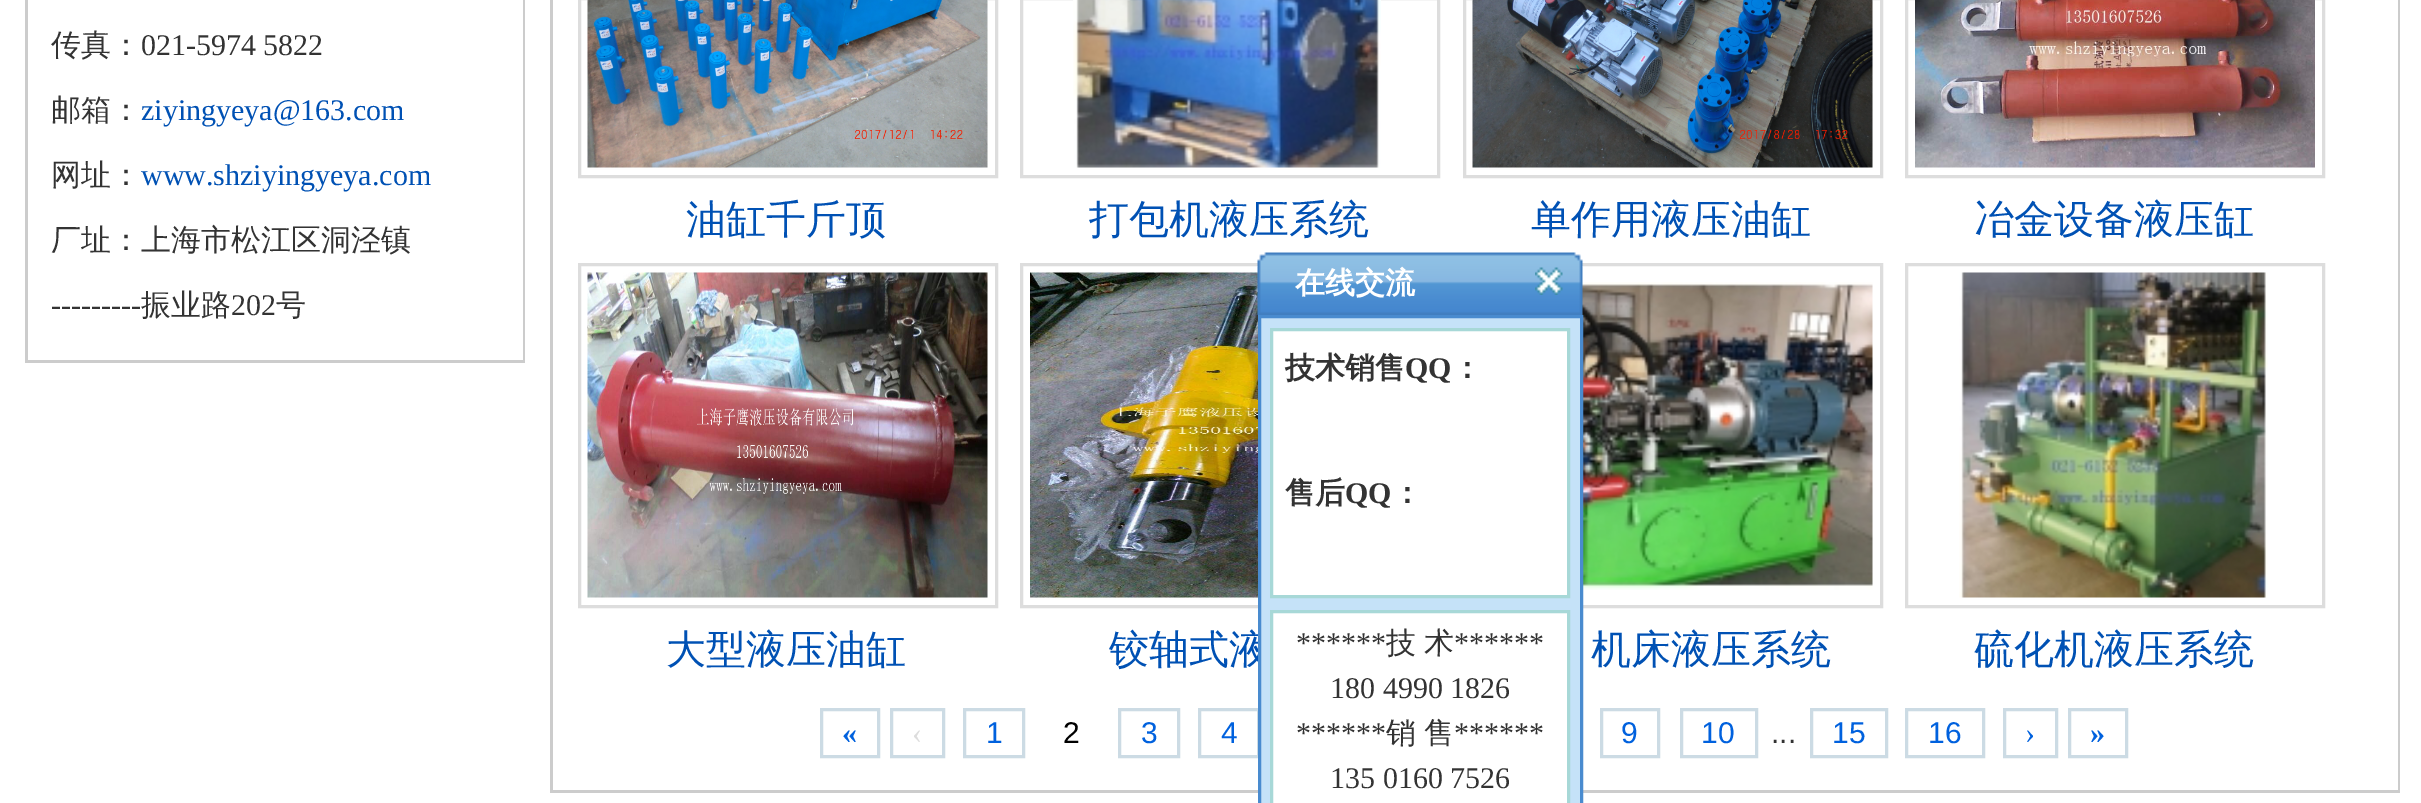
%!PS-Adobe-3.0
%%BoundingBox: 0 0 2421 803
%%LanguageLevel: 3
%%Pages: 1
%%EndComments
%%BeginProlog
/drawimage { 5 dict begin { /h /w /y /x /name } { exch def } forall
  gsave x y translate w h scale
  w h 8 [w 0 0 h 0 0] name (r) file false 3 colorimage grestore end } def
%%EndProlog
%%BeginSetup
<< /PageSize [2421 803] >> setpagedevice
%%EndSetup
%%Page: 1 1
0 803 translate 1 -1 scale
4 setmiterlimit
1 setgray
0 0 2421 803 rectfill
0.8 setgray
523 0 2 363 rectfill
25 360 500 3 rectfill
25 0 3 363 rectfill
2398 0 2 793 rectfill
550 790 1850 3 rectfill
550 0 3 793 rectfill
0.867 setgray
3 setlinewidth
579.5 -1.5 417 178 rectstroke
(images/1.raw) 587 0 401 168 drawimage
1021.5 -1.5 417 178 rectstroke
(images/2.raw) 1073 0 308 168 drawimage
1464.5 -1.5 417 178 rectstroke
(images/3.raw) 1472 0 401 168 drawimage
1906.5 -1.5 417 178 rectstroke
(images/4.raw) 1915 0 400 168 drawimage
579.5 264.5 417 342 rectstroke
(images/5.raw) 587 272 401 326 drawimage
1021.5 264.5 417 342 rectstroke
(images/6.raw) 1030 272 228 326 drawimage
1464.5 264.5 417 342 rectstroke
(images/7.raw) 1582 282 291 308 drawimage
1906.5 264.5 417 342 rectstroke
(images/8.raw) 1959 272 309 326 drawimage
0.8 0.859 0.894 setrgbcolor
821.5 709.5 57 47 rectstroke
891.5 709.5 52 47 rectstroke
964.5 709.5 59 47 rectstroke
1119.5 709.5 59 47 rectstroke
1199.5 709.5 59 47 rectstroke
1601.5 709.5 57 47 rectstroke
1681.5 709.5 75 47 rectstroke
1811.5 709.5 75 47 rectstroke
1906.5 709.5 77 47 rectstroke
2004.5 709.5 52 47 rectstroke
2069.5 709.5 57 47 rectstroke
(images/9.raw) 1257 252 326 63 drawimage
(images/10.raw) 1535 267 28 28 drawimage
/WenQuanYiZenHei-Medium [30 0 0 -30 0 0] selectfont
0.2 setgray
51 55 moveto (传真：) show
/LiberationSerif-Regular [30 0 0 -30 0 0] selectfont
141 55 moveto (021-5974 5822) show
/WenQuanYiZenHei-Medium [30 0 0 -30 0 0] selectfont
51 120 moveto (邮箱：) show
/LiberationSerif-Regular [30 0 0 -30 0 0] selectfont
0 0.318 0.706 setrgbcolor
141 120 moveto (ziyingyeya@163.com) show
/WenQuanYiZenHei-Medium [30 0 0 -30 0 0] selectfont
0.2 setgray
51 185 moveto (网址：) show
/LiberationSerif-Regular [30 0 0 -30 0 0] selectfont
0 0.318 0.706 setrgbcolor
141 185 moveto (www.shziyingyeya.com) show
/WenQuanYiZenHei-Medium [30 0 0 -30 0 0] selectfont
0.2 setgray
51 250 moveto (厂址：上海市松江区洞泾镇) show
/LiberationSerif-Regular [30 0 0 -30 0 0] selectfont
51 315 moveto (---------) show
/WenQuanYiZenHei-Medium [30 0 0 -30 0 0] selectfont
141 315 moveto (振业路) show
/LiberationSerif-Regular [30 0 0 -30 0 0] selectfont
231 315 moveto (202) show
/WenQuanYiZenHei-Medium [30 0 0 -30 0 0] selectfont
276 315 moveto (号) show
/WenQuanYiZenHei-Medium [40 0 0 -40 0 0] selectfont
0 0.318 0.706 setrgbcolor
686 233 moveto (油缸千斤顶) show
1089 233 moveto (打包机液压系统) show
1531 233 moveto (单作用液压油缸) show
1974 233 moveto (冶金设备液压缸) show
666 663 moveto (大型液压油缸) show
1109 663 moveto (铰轴式液) show
1591 663 moveto (机床液压系统) show
1974 663 moveto (硫化机液压系统) show
/LiberationSerif-Bold [30 0 0 -30 0 0] selectfont
0 0.38 0.871 setrgbcolor
842 743 moveto («) show
/LiberationSerif-Regular [30 0 0 -30 0 0] selectfont
0.867 setgray
912 743 moveto (‹) show
/LiberationSans-Regular [30 0 0 -30 0 0] selectfont
0 0.38 0.871 setrgbcolor
986 743 moveto (1) show
0 setgray
1063 743 moveto (2) show
0 0.38 0.871 setrgbcolor
1141 743 moveto (3) show
1221 743 moveto (4) show
1621 743 moveto (9) show
1701 743 moveto (10) show
0.2 setgray
1771 743 moveto (...) show
0 0.38 0.871 setrgbcolor
1832 743 moveto (15) show
1928 743 moveto (16) show
/LiberationSerif-Regular [30 0 0 -30 0 0] selectfont
2025 743 moveto (›) show
/LiberationSerif-Bold [30 0 0 -30 0 0] selectfont
2090 743 moveto (») show
/WenQuanYiZenHei-Bold [30 0 0 -30 0 0] selectfont
1 setgray
1295 293 moveto (在线交流) show
0.773 0.886 0.973 setrgbcolor
newpath 1259.5 316.5 moveto 1581.5 316.5 lineto 1581.5 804.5 lineto 1259.5 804.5 lineto closepath gsave fill grestore
0.286 0.545 0.812 setrgbcolor
stroke
1 setgray
newpath 1271.5 329.5 moveto 1568.5 329.5 lineto 1568.5 596.5 lineto 1271.5 596.5 lineto closepath gsave fill grestore
0.655 0.847 0.843 setrgbcolor
stroke
0.2 setgray
1285 378 moveto (技术销售) show
/LiberationSerif-Bold [30 0 0 -30 0 0] selectfont
1405 378 moveto (QQ) show
/WenQuanYiZenHei-Bold [30 0 0 -30 0 0] selectfont
1452 378 moveto (：) show
1285 503 moveto (售后) show
/LiberationSerif-Bold [30 0 0 -30 0 0] selectfont
1345 503 moveto (QQ) show
/WenQuanYiZenHei-Bold [30 0 0 -30 0 0] selectfont
1392 503 moveto (：) show
1 setgray
newpath 1271.5 611.5 moveto 1568.5 611.5 lineto 1568.5 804.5 lineto 1271.5 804.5 lineto closepath gsave fill grestore
0.655 0.847 0.843 setrgbcolor
stroke
/LiberationSerif-Regular [30 0 0 -30 0 0] selectfont
0.2 setgray
1296 653 moveto (******) show
/WenQuanYiZenHei-Medium [30 0 0 -30 0 0] selectfont
1386 653 moveto (技) show
1424 653 moveto (术) show
/LiberationSerif-Regular [30 0 0 -30 0 0] selectfont
1454 653 moveto (******) show
1330 698 moveto (180 4990 1826) show
1296 743 moveto (******) show
/WenQuanYiZenHei-Medium [30 0 0 -30 0 0] selectfont
1386 743 moveto (销) show
1424 743 moveto (售) show
/LiberationSerif-Regular [30 0 0 -30 0 0] selectfont
1454 743 moveto (******) show
1330 788 moveto (135 0160 7526) show
showpage
%%EOF
